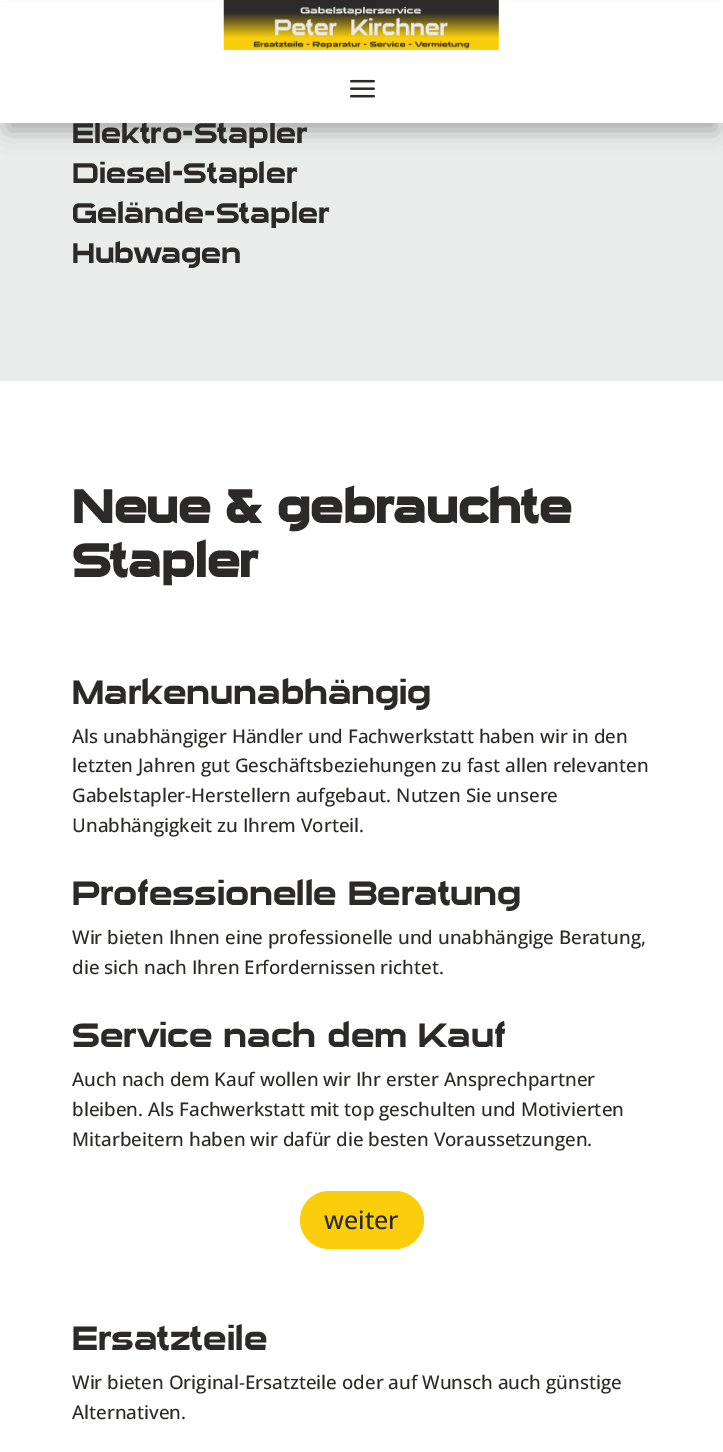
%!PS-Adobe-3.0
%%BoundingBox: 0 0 723 1452
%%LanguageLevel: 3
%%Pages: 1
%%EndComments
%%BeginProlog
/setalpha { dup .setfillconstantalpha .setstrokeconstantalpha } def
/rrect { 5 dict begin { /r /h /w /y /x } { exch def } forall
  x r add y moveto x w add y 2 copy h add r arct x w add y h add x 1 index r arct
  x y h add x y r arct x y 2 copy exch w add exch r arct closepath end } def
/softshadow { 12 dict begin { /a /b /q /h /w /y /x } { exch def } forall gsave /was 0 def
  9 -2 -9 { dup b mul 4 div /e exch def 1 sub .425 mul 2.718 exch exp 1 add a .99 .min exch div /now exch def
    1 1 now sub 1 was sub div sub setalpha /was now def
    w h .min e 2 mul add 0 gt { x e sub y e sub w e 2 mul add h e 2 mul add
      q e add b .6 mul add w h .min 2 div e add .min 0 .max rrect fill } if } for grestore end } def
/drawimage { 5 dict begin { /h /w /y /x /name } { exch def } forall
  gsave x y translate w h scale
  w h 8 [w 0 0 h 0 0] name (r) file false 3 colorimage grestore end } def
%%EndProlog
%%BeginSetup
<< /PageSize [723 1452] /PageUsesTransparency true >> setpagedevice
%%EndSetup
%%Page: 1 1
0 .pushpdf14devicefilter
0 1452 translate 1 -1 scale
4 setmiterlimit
1 setgray
0 0 723 1452 rectfill
0.922 0.929 0.925 setrgbcolor
0 123 723 258 rectfill
0 setgray
8 23 708 107 0 11 0.3 softshadow
0.98 0.808 0.051 setrgbcolor
300 1191 124 58 29 rrect fill
/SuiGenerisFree-Regular [27.5 0 0 -27.5 0 0] selectfont
0.169 0.165 0.157 setrgbcolor
72 143 moveto (Elektro-Stapler) show
1 setgray
0 3 723 120 rectfill
(images/2.raw) 350 79 25 19 drawimage
(images/1.raw) 223 0 276 50 drawimage
0.169 0.165 0.157 setrgbcolor
72 183 moveto (Diesel-Stapler) show
72 223 moveto (Gelände-Stapler) show
72 263 moveto (Hubwagen) show
/SuiGenerisFree-Bold [45 0 0 -45 0 0] selectfont
72 523 moveto (Neue & gebrauchte) show
72 577 moveto (Stapler) show
/SuiGenerisFree-Regular [32.5 0 0 -32.5 0 0] selectfont
72 704 moveto (Markenunabhängig) show
/OpenSans-Medium [18.75 0 0 -18.75 0 0] selectfont
72 743 moveto (Als unabhängiger Händler und Fachwerkstatt haben wir in den) show
72 772 moveto (letzten Jahren gut Geschäftsbeziehungen zu fast allen relevanten) show
72 802 moveto (Gabelstapler-Herstellern aufgebaut. Nutzen Sie unsere) show
72 832 moveto (Unabhängigkeit zu Ihrem Vorteil.) show
/SuiGenerisFree-Regular [32.5 0 0 -32.5 0 0] selectfont
72 905 moveto (Professionelle Beratung) show
/OpenSans-Medium [18.75 0 0 -18.75 0 0] selectfont
72 944 moveto (Wir bieten Ihnen eine professionelle und unabhängige Beratung,) show
72 974 moveto (die sich nach Ihren Erfordernissen richtet.) show
/SuiGenerisFree-Regular [32.5 0 0 -32.5 0 0] selectfont
72 1047 moveto (Service nach dem Kauf) show
/OpenSans-Medium [18.75 0 0 -18.75 0 0] selectfont
72 1086 moveto (Auch nach dem Kauf wollen wir Ihr erster Ansprechpartner) show
72 1116 moveto (bleiben. Als Fachwerkstatt mit top geschulten und Motivierten) show
72 1146 moveto (Mitarbeitern haben wir dafür die besten Voraussetzungen.) show
/OpenSans-Medium [25 0 0 -25 0 0] selectfont
324 1229 moveto (weiter) show
/SuiGenerisFree-Regular [32.5 0 0 -32.5 0 0] selectfont
72 1350 moveto (Ersatzteile) show
/OpenSans-Medium [18.75 0 0 -18.75 0 0] selectfont
72 1389 moveto (Wir bieten Original-Ersatzteile oder auf Wunsch auch günstige) show
72 1419 moveto (Alternativen.) show
.poppdf14devicefilter showpage
%%EOF
